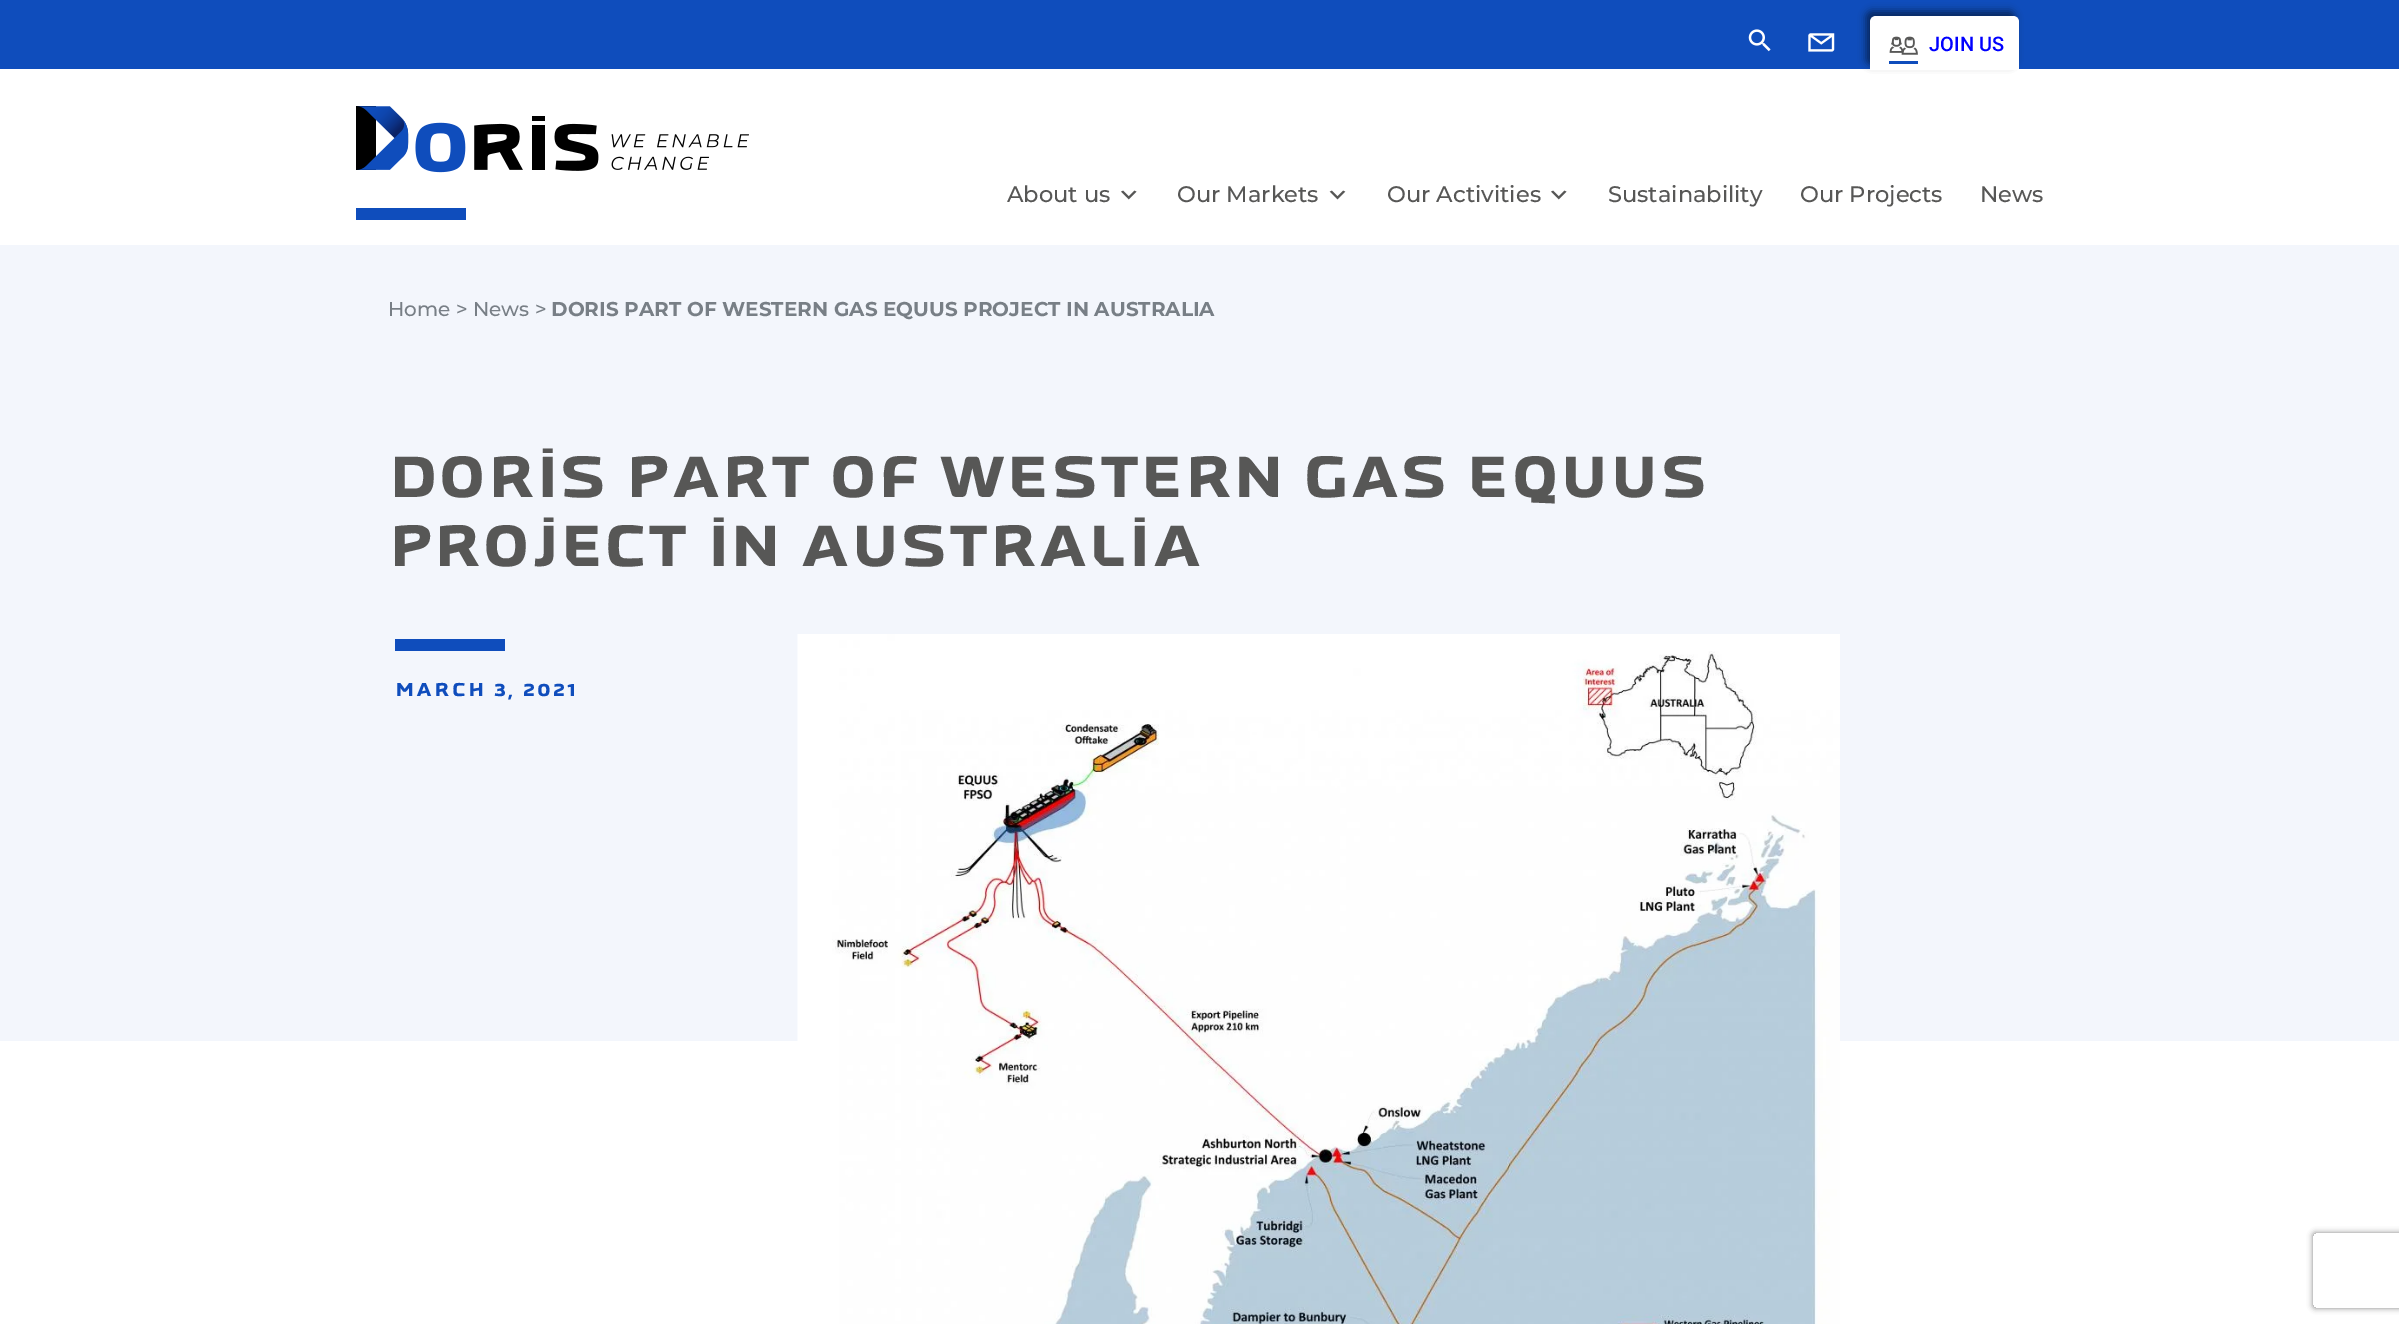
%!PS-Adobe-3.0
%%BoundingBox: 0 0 2399 1324
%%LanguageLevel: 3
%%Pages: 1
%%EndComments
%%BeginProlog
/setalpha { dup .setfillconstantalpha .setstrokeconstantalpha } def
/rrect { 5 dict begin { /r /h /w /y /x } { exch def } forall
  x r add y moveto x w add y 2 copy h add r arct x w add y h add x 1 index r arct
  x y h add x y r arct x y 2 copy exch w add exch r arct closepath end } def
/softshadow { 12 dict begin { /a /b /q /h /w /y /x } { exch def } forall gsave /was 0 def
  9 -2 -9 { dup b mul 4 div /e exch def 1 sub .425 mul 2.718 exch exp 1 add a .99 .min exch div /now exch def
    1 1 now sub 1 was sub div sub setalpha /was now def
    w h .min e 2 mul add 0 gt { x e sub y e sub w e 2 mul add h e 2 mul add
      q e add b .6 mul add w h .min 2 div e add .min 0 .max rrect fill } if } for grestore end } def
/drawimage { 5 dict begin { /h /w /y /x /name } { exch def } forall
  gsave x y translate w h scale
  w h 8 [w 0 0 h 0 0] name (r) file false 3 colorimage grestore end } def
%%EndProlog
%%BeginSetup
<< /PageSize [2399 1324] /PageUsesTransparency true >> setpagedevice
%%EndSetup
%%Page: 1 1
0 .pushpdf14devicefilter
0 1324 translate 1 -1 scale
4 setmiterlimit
1 setgray
0 0 2399 1324 rectfill
0.059 0.302 0.737 setrgbcolor
0 0 2399 69 rectfill
(images/1.raw) 1748 29 23 23 drawimage
(images/2.raw) 1808 33 27 19 drawimage
0 setgray
1866 11 149 54 6 4 0.5 softshadow
1 setgray
newpath 1876 16 moveto 2013 16 lineto 2016.5 16 2019 18.5 2019 22 curveto 2019 70 lineto 1870 70 lineto 1870 22 lineto 1870 18.5 1872.5 16 1876 16 curveto closepath fill
(images/3.raw) 1889 36 29 28 drawimage
(images/4.raw) 356 106 393 67 drawimage
0.059 0.302 0.737 setrgbcolor
356 208 110 12 rectfill
(images/5.raw) 1121 190 16 10 drawimage
(images/6.raw) 1329 190 17 10 drawimage
(images/5.raw) 1551 190 16 10 drawimage
0.953 0.965 0.988 setrgbcolor
0 245 2399 796 rectfill
0.059 0.302 0.737 setrgbcolor
395 639 110 12 rectfill
(images/7.raw) 797 634 1043 690 drawimage
gsave
newpath 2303 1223 moveto 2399 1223 lineto 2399 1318 lineto 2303 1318 lineto closepath 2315.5 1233 moveto 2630.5 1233 lineto 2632 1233 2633 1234 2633 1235.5 curveto 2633 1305.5 lineto 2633 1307 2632 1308 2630.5 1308 curveto 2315.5 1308 lineto 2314 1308 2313 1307 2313 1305.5 curveto 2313 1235.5 lineto 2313 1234 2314 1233 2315.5 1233 curveto closepath eoclip newpath
0.502 setgray
2313 1233 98 75 2.5 3 1 softshadow
grestore
/Roboto-Medium [20 0 0 -20 0 0] selectfont
0 0 1 setrgbcolor
1929 51 moveto (JOIN US) show
/Montserrat-Medium [22.5 0 0 -22.5 0 0] selectfont
0.341 0.341 0.337 setrgbcolor
1007 202 moveto (About us) show
1177 202 moveto (Our Markets) show
1387 202 moveto (Our Activities) show
1608 202 moveto (Sustainability) show
1800 202 moveto (Our Projects) show
1980 202 moveto (News) show
/Montserrat-Medium [20 0 0 -20 0 0] selectfont
0.471 0.498 0.525 setrgbcolor
388 316 moveto (Home > News >) show
/Montserrat-Bold [20 0 0 -20 0 0] selectfont
551 316 moveto (DORIS PART OF WESTERN GAS EQUUS PROJECT IN AUSTRALIA) show
/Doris-Regular [62.5 0 0 -62.5 0 0] selectfont
0.341 0.341 0.337 setrgbcolor
388 497 moveto (DORIS PART OF WESTERN GAS EQUUS) show
388 566 moveto (PROJECT IN AUSTRALIA) show
/Doris-Regular [20 0 0 -20 0 0] selectfont
0.059 0.302 0.737 setrgbcolor
395 696 moveto 2 0 (MARCH 3, 2021) ashow
.poppdf14devicefilter showpage
%%EOF
